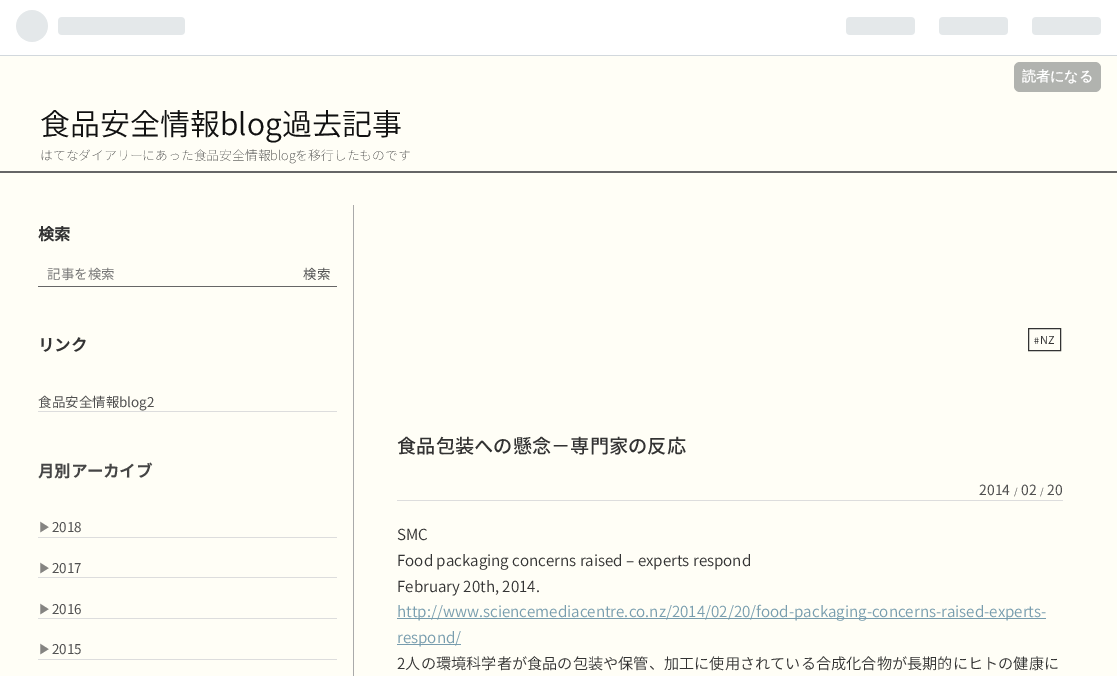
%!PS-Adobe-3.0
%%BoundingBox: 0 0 1117 676
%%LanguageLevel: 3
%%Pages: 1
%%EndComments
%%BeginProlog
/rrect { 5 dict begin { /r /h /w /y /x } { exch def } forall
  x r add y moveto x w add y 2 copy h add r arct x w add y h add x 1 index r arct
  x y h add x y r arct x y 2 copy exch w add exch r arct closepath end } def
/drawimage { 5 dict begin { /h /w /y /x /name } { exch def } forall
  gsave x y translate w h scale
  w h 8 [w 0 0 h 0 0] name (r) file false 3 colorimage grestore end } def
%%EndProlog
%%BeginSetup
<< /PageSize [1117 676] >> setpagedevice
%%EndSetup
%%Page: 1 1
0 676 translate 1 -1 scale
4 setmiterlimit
1 0.996 0.965 setrgbcolor
0 0 1117 676 rectfill
1 setgray
0 0 1117 55 rectfill
0.824 0.847 0.867 setrgbcolor
0 55 1117 1 rectfill
(images/1.raw) 16 10 169 32 drawimage
(images/2.raw) 846 17 255 18 drawimage
0.694 0.702 0.686 setrgbcolor
1014 62 87 30 6 rrect fill
0.4 setgray
0 171 1117 2 rectfill
0.667 setgray
353 205 1 471 rectfill
0.4 setgray
38 286 299 1 rectfill
0.867 setgray
38 411 299 1 rectfill
38 537 299 1 rectfill
38 577 299 1 rectfill
38 618 299 1 rectfill
38 659 299 1 rectfill
397 500 666 1 rectfill
0.2 setgray
1028.5 328.5 32 22 rectstroke
0.471 0.616 0.682 setrgbcolor
397 618 649 1 rectfill
397 644 64 1 rectfill
/WenQuanYiZenHei-Bold [14 0 0 -14 0 0] selectfont
1 setgray
1022 81 moveto (読者になる) show
/NotoSansJP-Light [30 0 0 -30 0 0] selectfont
0.067 setgray
40 135 moveto (食品安全情報blog過去記事) show
/NotoSansJP-Thin [12.8 0 0 -12.8 0 0] selectfont
0.2 setgray
40 160 moveto (はてなダイアリーにあった食品安全情報blogを移行したものです) show
/NotoSansJP-Bold [16.25 0 0 -16.25 0 0] selectfont
38 240 moveto (検索) show
/NotoSansJP-Regular [13.5 0 0 -13.5 0 0] selectfont
0.459 setgray
47 279 moveto (記事を検索) show
0.314 setgray
303 279 moveto (検索) show
/NotoSansJP-Bold [16.25 0 0 -16.25 0 0] selectfont
0.2 setgray
38 351 moveto (リンク) show
/NotoSansJP-Regular [13.5 0 0 -13.5 0 0] selectfont
0.314 setgray
38 407 moveto (食品安全情報blog2) show
/NotoSansJP-Bold [16.25 0 0 -16.25 0 0] selectfont
0.271 setgray
38 477 moveto (月別アーカイブ) show
/WenQuanYiZenHei-Medium [13.5 0 0 -13.5 0 0] selectfont
0.522 0.518 0.506 setrgbcolor
38 532 moveto (▶) show
/NotoSansJP-Regular [13.5 0 0 -13.5 0 0] selectfont
0.314 setgray
52 532 moveto (2018) show
/WenQuanYiZenHei-Medium [13.5 0 0 -13.5 0 0] selectfont
0.522 0.518 0.506 setrgbcolor
38 573 moveto (▶) show
/NotoSansJP-Regular [13.5 0 0 -13.5 0 0] selectfont
0.314 setgray
52 573 moveto (2017) show
/WenQuanYiZenHei-Medium [13.5 0 0 -13.5 0 0] selectfont
0.522 0.518 0.506 setrgbcolor
38 614 moveto (▶) show
/NotoSansJP-Regular [13.5 0 0 -13.5 0 0] selectfont
0.314 setgray
52 614 moveto (2016) show
/WenQuanYiZenHei-Medium [13.5 0 0 -13.5 0 0] selectfont
0.522 0.518 0.506 setrgbcolor
38 654 moveto (▶) show
/NotoSansJP-Regular [13.5 0 0 -13.5 0 0] selectfont
0.314 setgray
52 654 moveto (2015) show
/NotoSansJP-Regular [9 0 0 -9 0 0] selectfont
0.2 setgray
1034 344 moveto (#) show
/NotoSansJP-Regular [11 0 0 -11 0 0] selectfont
1040 344 moveto (NZ) show
/NotoSansJP-Medium [19.25 0 0 -19.25 0 0] selectfont
397 453 moveto (食品包装への懸念−専門家の反応) show
/NotoSansJP-Regular [14 0 0 -14 0 0] selectfont
0.314 setgray
979 495 moveto (2014) show
/NotoSansJP-Regular [9 0 0 -9 0 0] selectfont
1014 495 moveto (/) show
/NotoSansJP-Regular [14 0 0 -14 0 0] selectfont
1021 495 moveto (02) show
/NotoSansJP-Regular [9 0 0 -9 0 0] selectfont
1040 495 moveto (/) show
/NotoSansJP-Regular [14 0 0 -14 0 0] selectfont
1047 495 moveto (20) show
/NotoSansJP-Light [15.2 0 0 -15.2 0 0] selectfont
0.2 setgray
397 540 moveto (SMC) show
397 566 moveto (Food packaging concerns raised – experts respond) show
397 592 moveto (February 20th, 2014.) show
0.471 0.616 0.682 setrgbcolor
397 617 moveto (http://www.sciencemediacentre.co.nz/2014/02/20/food-packaging-concerns-raised-experts-) show
397 643 moveto (respond/) show
0.2 setgray
397 669 moveto (2人の環境科学者が食品の包装や保管、加工に使用されている合成化合物が長期的にヒトの健康に) show
showpage
%%EOF
